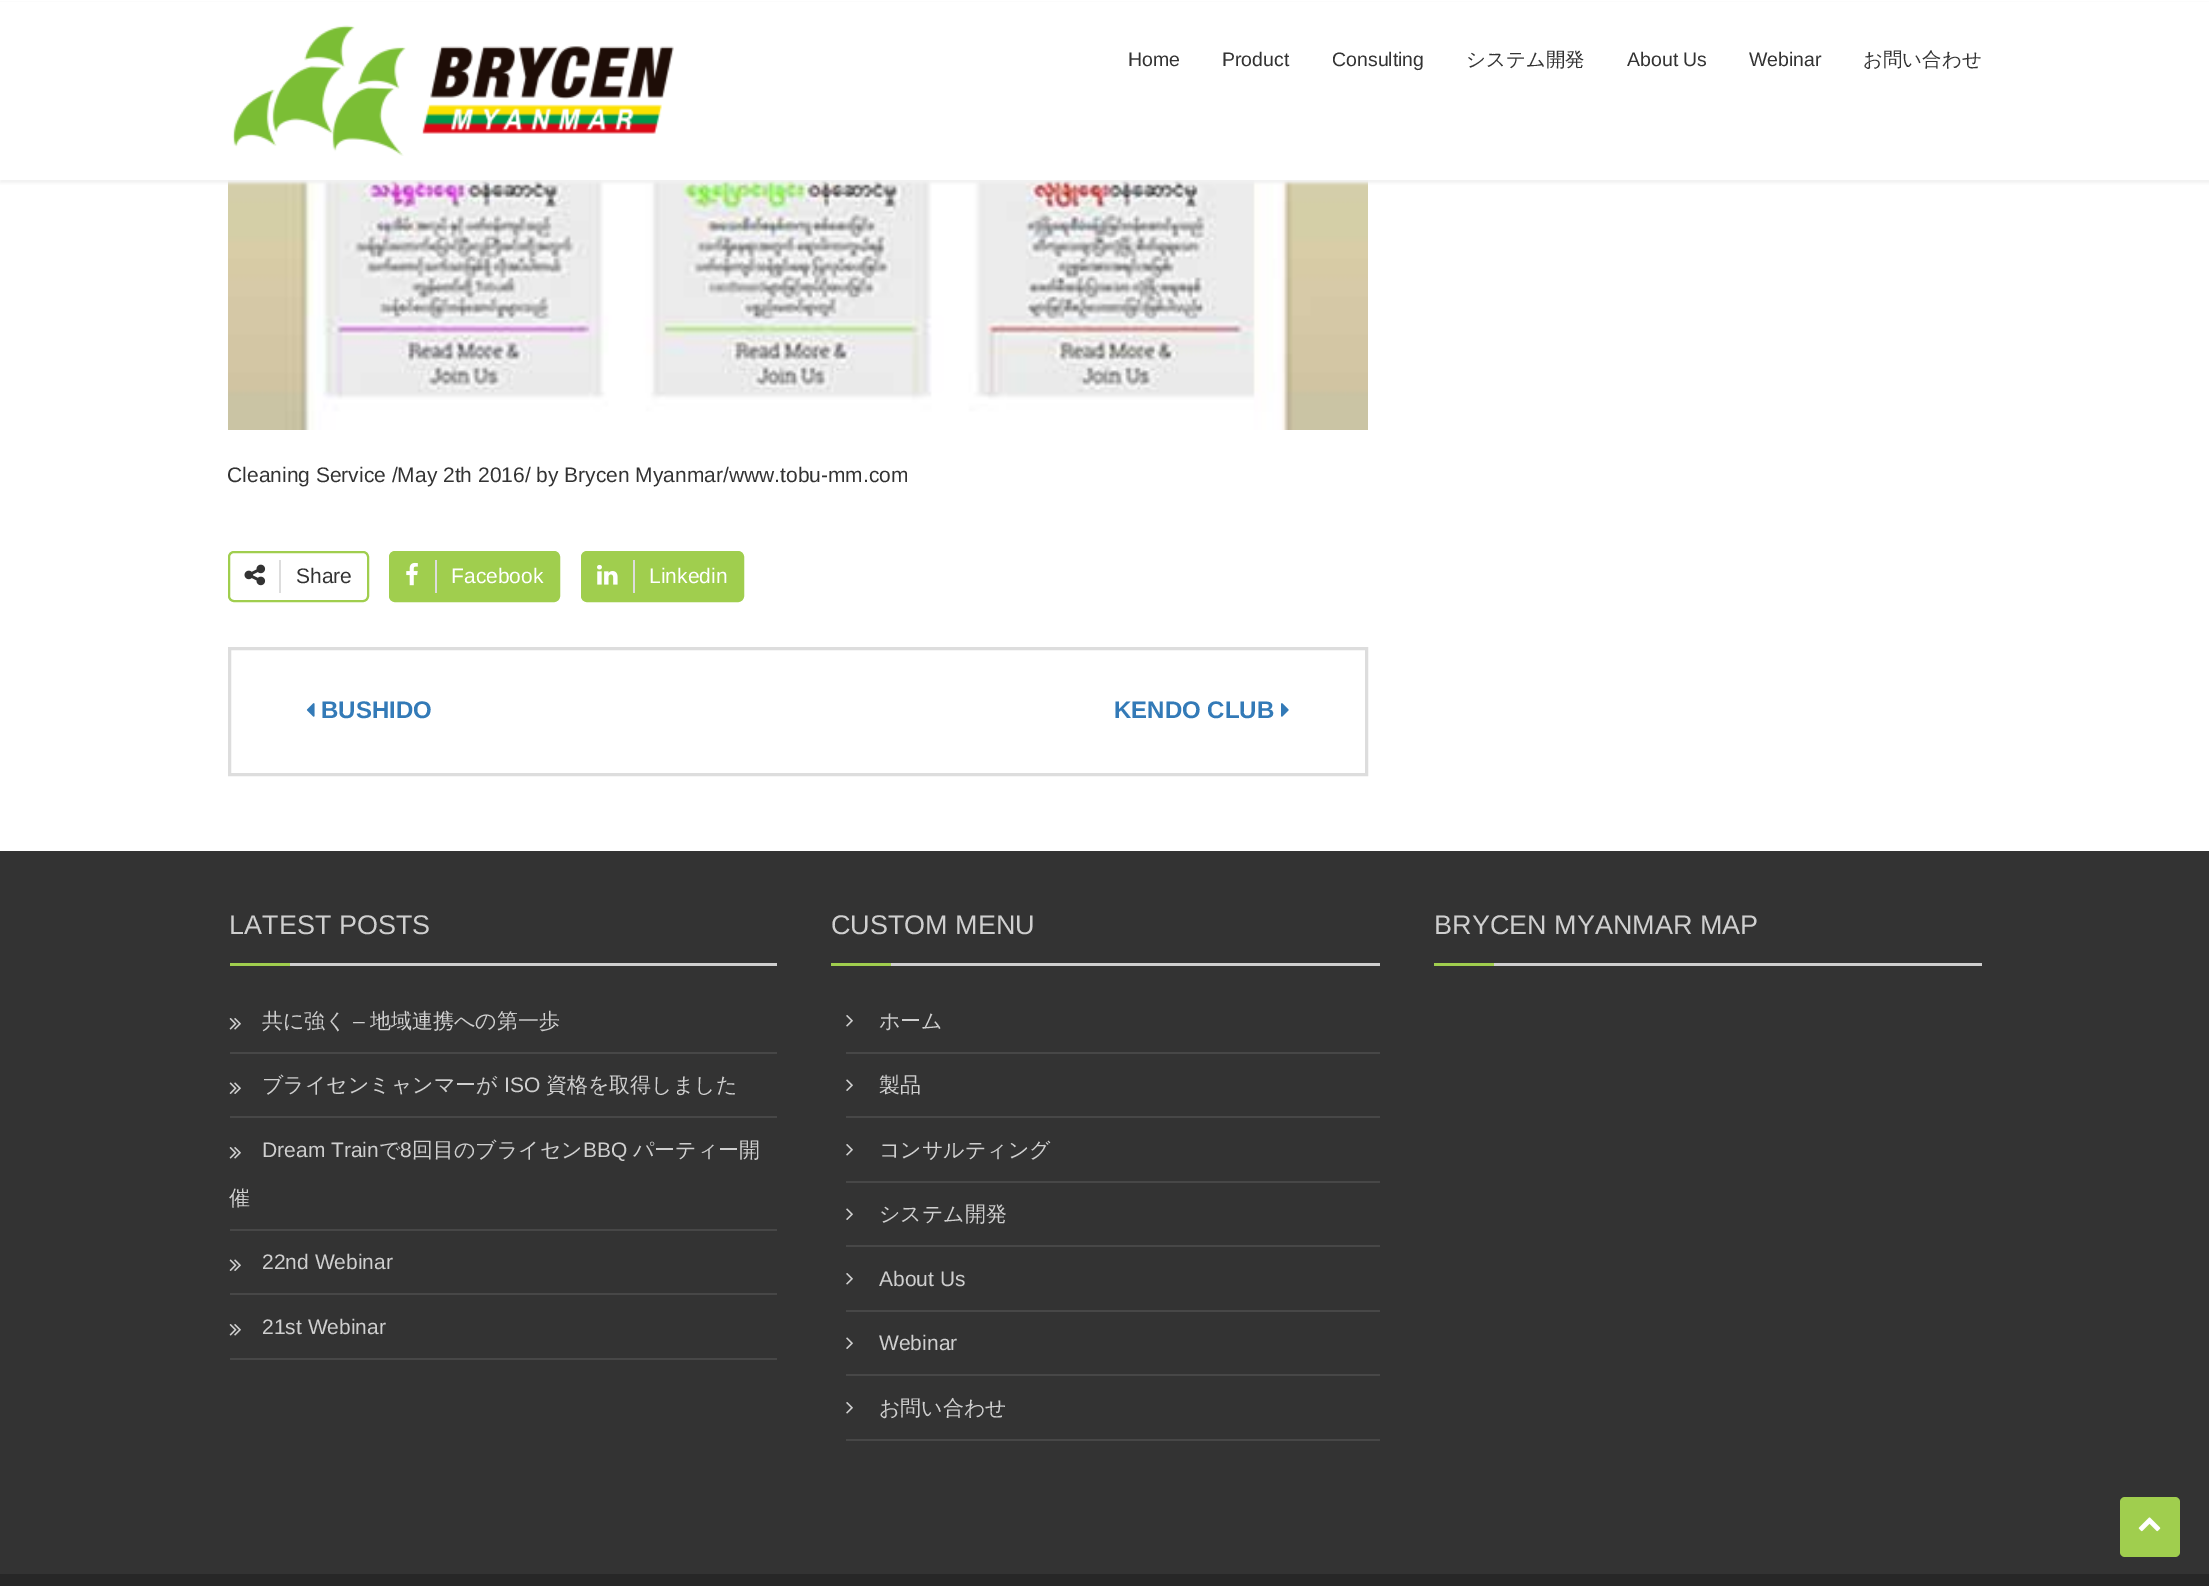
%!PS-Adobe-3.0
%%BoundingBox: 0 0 2209 1586
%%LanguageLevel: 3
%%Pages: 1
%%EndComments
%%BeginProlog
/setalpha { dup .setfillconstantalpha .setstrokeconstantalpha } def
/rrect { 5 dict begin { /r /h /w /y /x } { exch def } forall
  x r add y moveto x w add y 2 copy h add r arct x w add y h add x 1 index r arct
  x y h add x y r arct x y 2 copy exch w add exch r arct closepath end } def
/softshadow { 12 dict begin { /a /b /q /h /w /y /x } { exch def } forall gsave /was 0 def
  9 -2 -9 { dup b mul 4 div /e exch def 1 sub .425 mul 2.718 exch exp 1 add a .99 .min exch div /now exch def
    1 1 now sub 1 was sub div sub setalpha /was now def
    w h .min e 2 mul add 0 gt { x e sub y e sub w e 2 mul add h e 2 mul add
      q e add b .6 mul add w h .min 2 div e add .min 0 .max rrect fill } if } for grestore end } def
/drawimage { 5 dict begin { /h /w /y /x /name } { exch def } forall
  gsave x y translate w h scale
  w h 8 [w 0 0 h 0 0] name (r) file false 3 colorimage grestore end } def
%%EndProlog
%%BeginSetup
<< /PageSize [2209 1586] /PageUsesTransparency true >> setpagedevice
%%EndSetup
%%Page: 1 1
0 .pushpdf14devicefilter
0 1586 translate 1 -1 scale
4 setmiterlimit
1 setgray
0 0 2209 1586 rectfill
(images/2.raw) 228 180 1140 250 drawimage
0.945 setgray
0 3 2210 180 0 1.5 1 softshadow
1 setgray
0 2 2209 178 rectfill
(images/1.raw) 232 25 442 131 drawimage
0.627 0.808 0.306 setrgbcolor
2 setlinewidth
229 552 139 49 5 rrect stroke
0.867 setgray
279 560 2 33 rectfill
(images/3.raw) 244 564 22 22 drawimage
0.627 0.808 0.306 setrgbcolor
390 552 169 49 5 rrect gsave fill grestore
stroke
0.867 setgray
435 560 2 33 rectfill
(images/4.raw) 406 562 12 24 drawimage
0.627 0.808 0.306 setrgbcolor
582 552 161 49 5 rrect gsave fill grestore
stroke
0.867 setgray
633 560 2 33 rectfill
(images/5.raw) 597 564 21 21 drawimage
3 setlinewidth
229.5 648.5 1137 126 rectstroke
(images/6.raw) 306 703 9 14 drawimage
(images/7.raw) 1281 703 8 14 drawimage
0.2 setgray
0 851 2209 723 rectfill
0.812 setgray
290 963 487 3 rectfill
0.627 0.808 0.306 setrgbcolor
230 963 60 3 rectfill
0.278 setgray
230 1052 547 2 rectfill
(images/8.raw) 229 1018 12 12 drawimage
230 1116 547 2 rectfill
(images/9.raw) 229 1082 12 12 drawimage
230 1229 547 2 rectfill
(images/8.raw) 229 1147 12 12 drawimage
230 1293 547 2 rectfill
(images/9.raw) 229 1259 12 12 drawimage
230 1358 547 2 rectfill
(images/8.raw) 229 1324 12 12 drawimage
0.812 setgray
891 963 489 3 rectfill
0.627 0.808 0.306 setrgbcolor
831 963 60 3 rectfill
0.278 setgray
846 1052 534 2 rectfill
(images/10.raw) 846 1015 7 12 drawimage
846 1116 534 2 rectfill
(images/11.raw) 846 1079 7 12 drawimage
846 1181 534 2 rectfill
(images/10.raw) 846 1144 7 12 drawimage
846 1245 534 2 rectfill
(images/11.raw) 846 1208 7 12 drawimage
846 1310 534 2 rectfill
(images/10.raw) 846 1273 7 12 drawimage
846 1374 534 2 rectfill
(images/11.raw) 846 1337 7 12 drawimage
846 1439 534 2 rectfill
(images/10.raw) 846 1402 7 12 drawimage
0.812 setgray
1494 963 488 3 rectfill
0.627 0.808 0.306 setrgbcolor
1434 963 60 3 rectfill
0.153 setgray
0 1574 2209 12 rectfill
0.627 0.808 0.306 setrgbcolor
2120 1497 60 60 5 rrect fill
(images/12.raw) 2138 1517 23 15 drawimage
/LiberationSans-Regular [19.5 0 0 -19.5 0 0] selectfont
0.2 setgray
1128 66 moveto (Home) show
1222 66 moveto (Product) show
1332 66 moveto (Consulting) show
/WenQuanYiZenHei-Medium [19.5 0 0 -19.5 0 0] selectfont
1466 66 moveto (システム開発) show
/LiberationSans-Regular [19.5 0 0 -19.5 0 0] selectfont
1627 66 moveto (About Us) show
1749 66 moveto (Webinar) show
/WenQuanYiZenHei-Medium [19.5 0 0 -19.5 0 0] selectfont
1863 66 moveto (お問い合わせ) show
/LiberationSans-Regular [21 0 0 -21 0 0] selectfont
227 482 moveto (Cleaning Service /May 2th 2016/ by Brycen Myanmar/www.tobu-mm.com) show
296 583 moveto (Share) show
1 setgray
451 583 moveto (Facebook) show
649 583 moveto (Linkedin) show
/LiberationSans-Bold [24 0 0 -24 0 0] selectfont
0.2 0.478 0.718 setrgbcolor
321 718 moveto (BUSHIDO) show
1114 718 moveto (KENDO CLUB) show
/LiberationSans-Regular [27 0 0 -27 0 0] selectfont
0.812 setgray
229 934 moveto (LATEST POSTS) show
/WenQuanYiZenHei-Medium [21 0 0 -21 0 0] selectfont
262 1028 moveto (共に強く) show
/LiberationSans-Regular [21 0 0 -21 0 0] selectfont
353 1028 moveto (–) show
/WenQuanYiZenHei-Medium [21 0 0 -21 0 0] selectfont
370 1028 moveto (地域連携への第一歩) show
262 1092 moveto (ブライセンミャンマーが) show
/LiberationSans-Regular [21 0 0 -21 0 0] selectfont
504 1092 moveto (ISO) show
/WenQuanYiZenHei-Medium [21 0 0 -21 0 0] selectfont
546 1092 moveto (資格を取得しました) show
/LiberationSans-Regular [21 0 0 -21 0 0] selectfont
262 1157 moveto (Dream Train) show
/WenQuanYiZenHei-Medium [21 0 0 -21 0 0] selectfont
379 1157 moveto (で) show
/LiberationSans-Regular [21 0 0 -21 0 0] selectfont
400 1157 moveto (8) show
/WenQuanYiZenHei-Medium [21 0 0 -21 0 0] selectfont
412 1157 moveto (回目のブライセン) show
/LiberationSans-Regular [21 0 0 -21 0 0] selectfont
583 1157 moveto (BBQ) show
/WenQuanYiZenHei-Medium [21 0 0 -21 0 0] selectfont
633 1157 moveto (パーティー開) show
229 1205 moveto (催) show
/LiberationSans-Regular [21 0 0 -21 0 0] selectfont
262 1269 moveto (22nd Webinar) show
262 1334 moveto (21st Webinar) show
/LiberationSans-Regular [27 0 0 -27 0 0] selectfont
831 934 moveto (CUSTOM MENU) show
/WenQuanYiZenHei-Medium [21 0 0 -21 0 0] selectfont
879 1028 moveto (ホーム) show
879 1092 moveto (製品) show
879 1157 moveto (コンサルティング) show
879 1221 moveto (システム開発) show
/LiberationSans-Regular [21 0 0 -21 0 0] selectfont
879 1286 moveto (About Us) show
879 1350 moveto (Webinar) show
/WenQuanYiZenHei-Medium [21 0 0 -21 0 0] selectfont
879 1415 moveto (お問い合わせ) show
/LiberationSans-Regular [27 0 0 -27 0 0] selectfont
1434 934 moveto (BRYCEN MYANMAR MAP) show
.poppdf14devicefilter showpage
%%EOF
